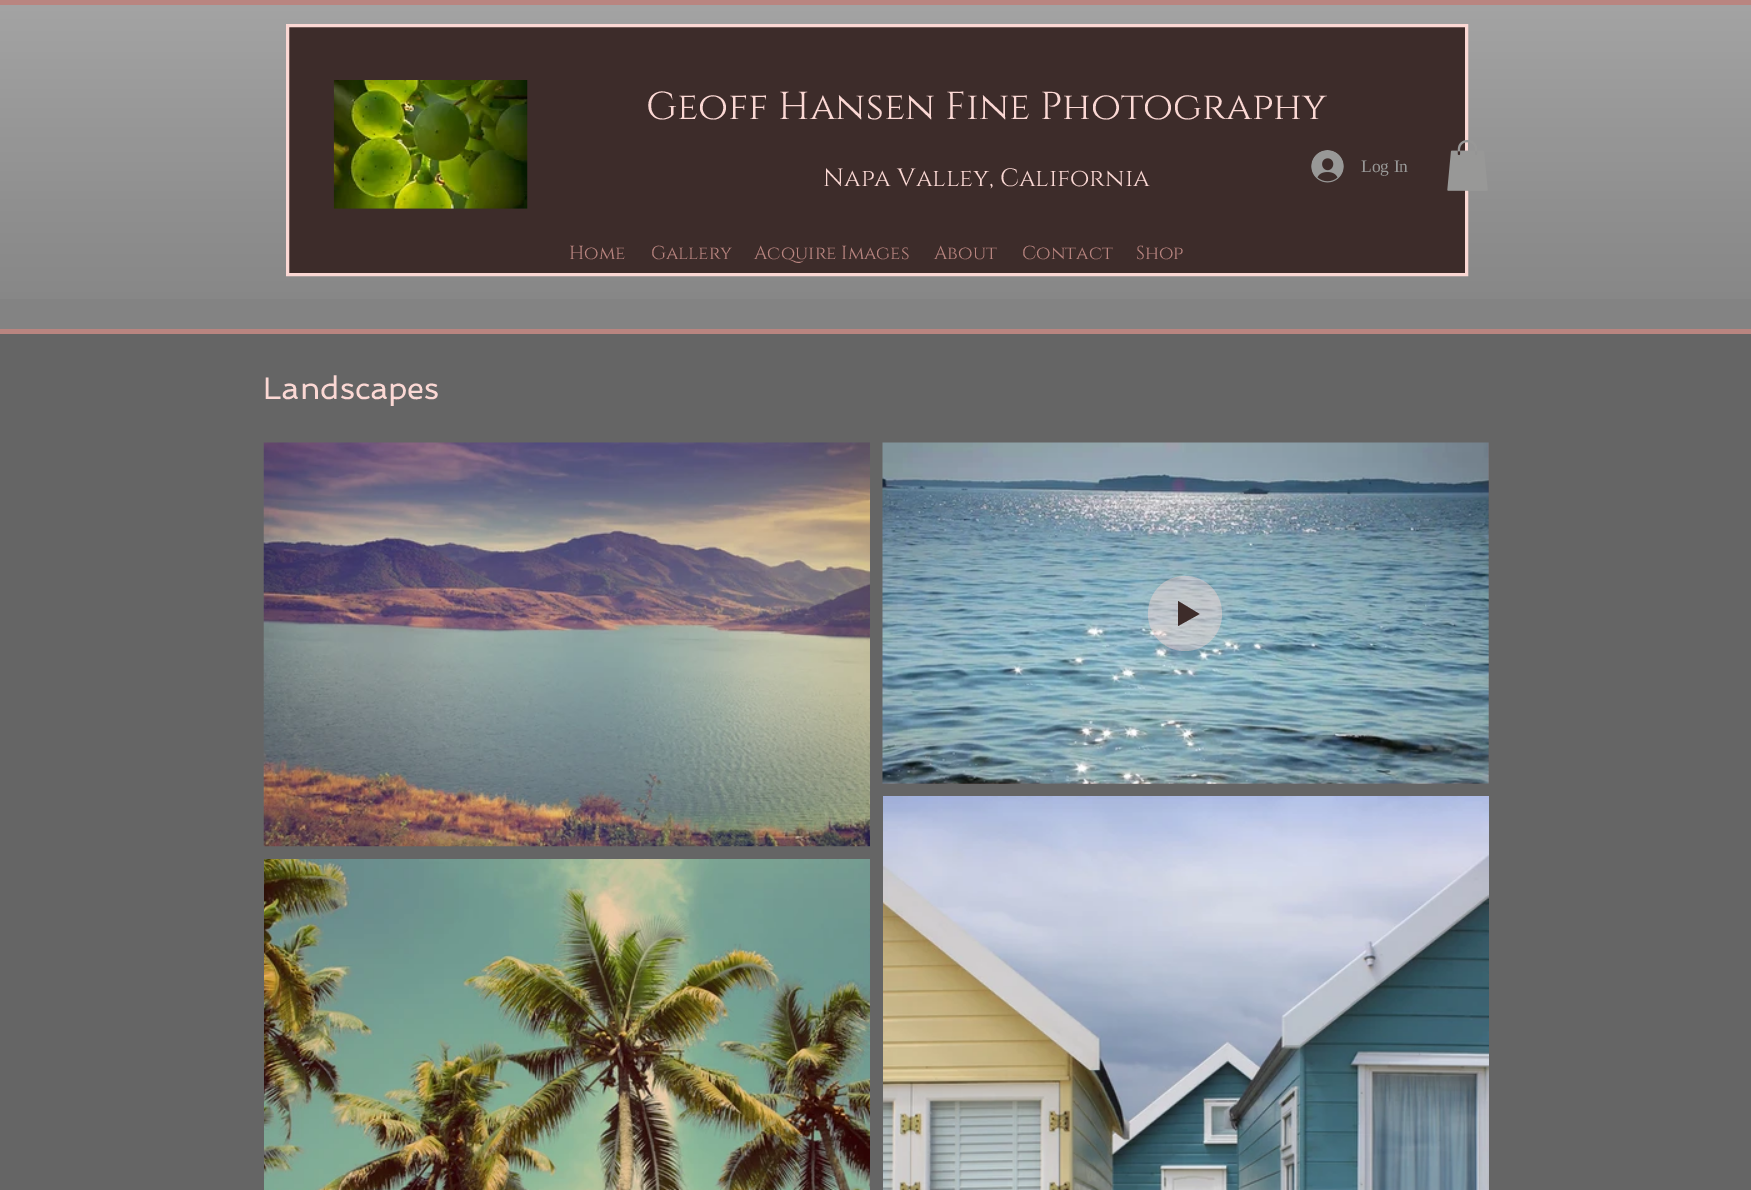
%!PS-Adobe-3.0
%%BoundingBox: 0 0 1751 1190
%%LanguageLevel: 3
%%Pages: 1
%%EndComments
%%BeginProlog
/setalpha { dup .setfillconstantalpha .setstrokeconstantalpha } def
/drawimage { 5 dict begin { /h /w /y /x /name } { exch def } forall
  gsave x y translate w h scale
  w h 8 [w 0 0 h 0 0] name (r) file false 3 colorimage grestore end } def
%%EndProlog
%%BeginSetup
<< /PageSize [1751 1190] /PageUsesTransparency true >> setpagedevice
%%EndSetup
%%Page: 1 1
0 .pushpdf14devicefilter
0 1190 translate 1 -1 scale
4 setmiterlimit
0.396 setgray
0 0 1751 1190 rectfill
0.514 setgray
0 5 1751 324 rectfill
(images/1.raw) 0 5 1751 294 drawimage
0.725 0.522 0.502 setrgbcolor
0 0 1751 5 rectfill
0 329 1751 5 rectfill
0.239 0.173 0.165 setrgbcolor
newpath 287.5 25.5 moveto 1466.5 25.5 lineto 1466.5 274.5 lineto 287.5 274.5 lineto closepath gsave fill grestore
0.984 0.847 0.831 setrgbcolor
3 setlinewidth
stroke
(images/2.raw) 333 80 195 129 drawimage
(images/3.raw) 1311 150 33 33 drawimage
(images/4.raw) 1447 140 41 51 drawimage
(images/5.raw) 263 442 607 405 drawimage
0.482 0.349 0.333 setrgbcolor
883 443 606 341 rectfill
(images/6.raw) 882 442 607 342 drawimage
0.42 setalpha
0.984 0.847 0.831 setrgbcolor
newpath 1185 576 moveto 1206 576 1222 593 1222 614 curveto 1222 634 1206 651 1185 651 curveto 1164 651 1148 634 1148 614 curveto 1148 593 1164 576 1185 576 curveto closepath eofill
1 setalpha
0.239 0.173 0.165 setrgbcolor
newpath 1199.5 614 moveto 1178 626 lineto 1178 601 lineto closepath fill
(images/7.raw) 264 859 606 331 drawimage
(images/8.raw) 883 796 606 394 drawimage
/Cinzel-Regular [38.75 0 0 -38.75 0 0] selectfont
0.984 0.847 0.831 setrgbcolor
646 119 moveto (Geoff Hansen Fine Photography) show
/Cinzel-Regular [25 0 0 -25 0 0] selectfont
823 186 moveto (Napa Valley, California) show
/Cinzel-Regular [18.75 0 0 -18.75 0 0] selectfont
0.725 0.522 0.502 setrgbcolor
569 259 moveto (Home) show
651 259 moveto (Gallery) show
754 259 moveto (Acquire Images) show
934 259 moveto (About) show
1022 259 moveto (Contact) show
1136 259 moveto (Shop) show
/LiberationSerif-Regular [17.5 0 0 -17.5 0 0] selectfont
0.596 0.596 0.592 setrgbcolor
1361 172 moveto (Log In) show
/Spinnaker-Regular [31.25 0 0 -31.25 0 0] selectfont
0.984 0.847 0.831 setrgbcolor
263 399 moveto (Landscapes) show
.poppdf14devicefilter showpage
%%EOF
